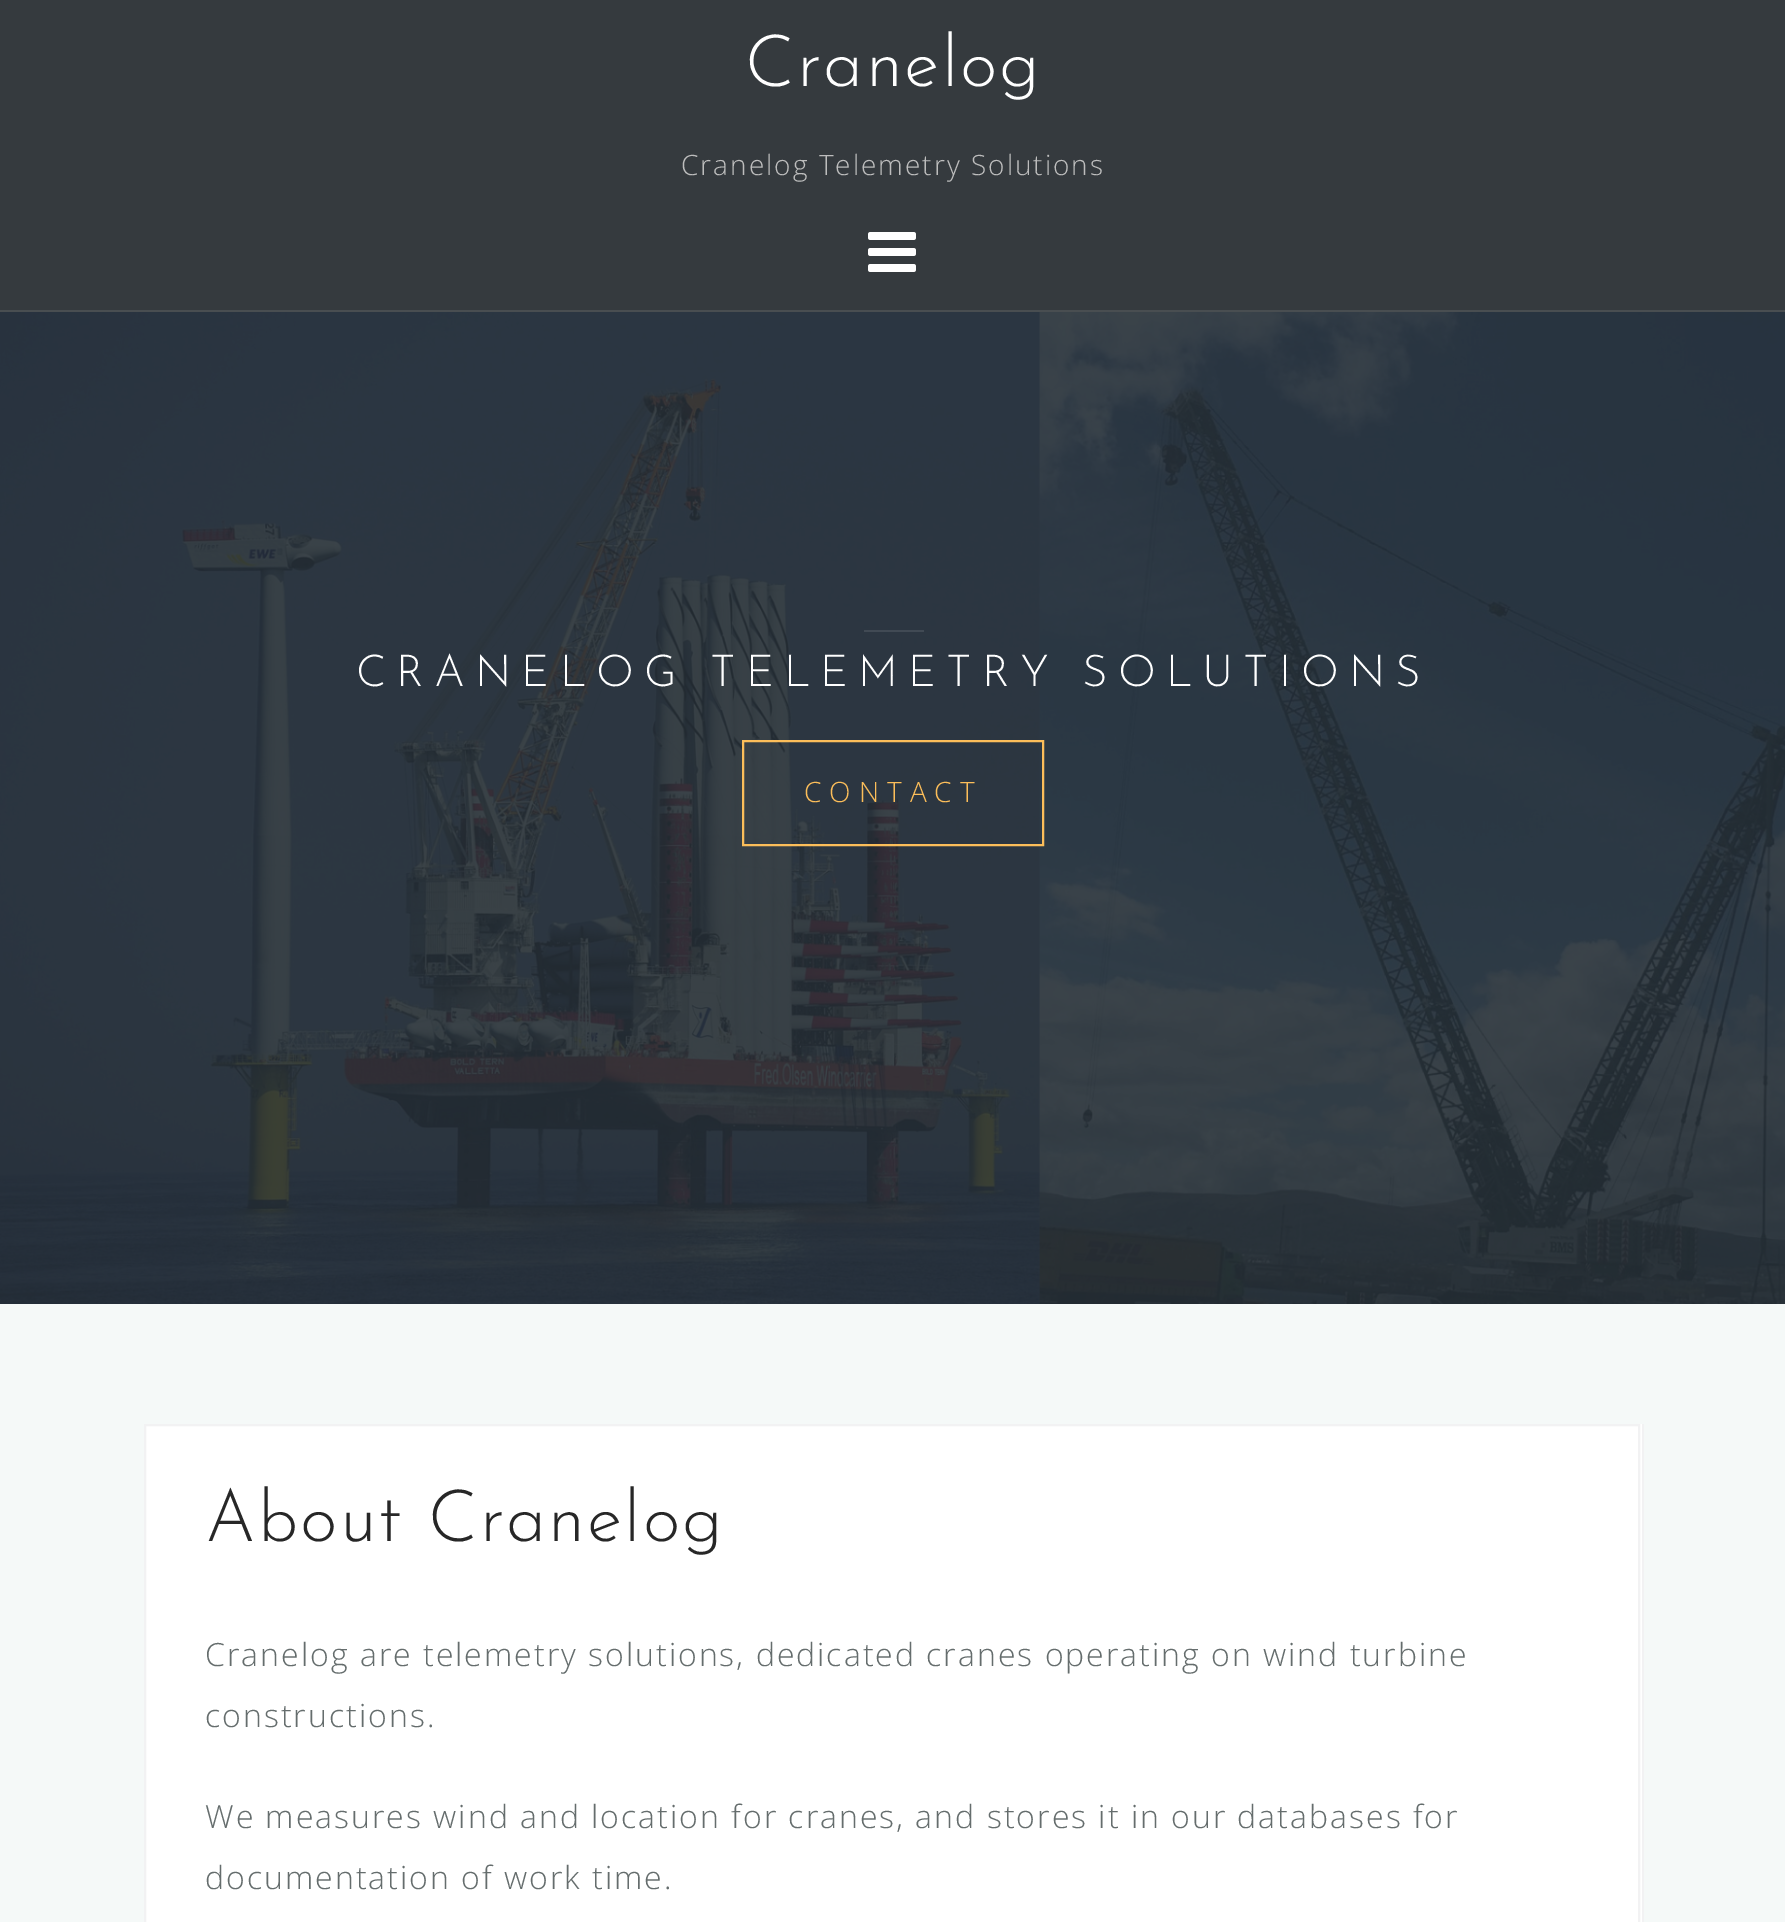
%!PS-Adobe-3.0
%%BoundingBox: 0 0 1785 1922
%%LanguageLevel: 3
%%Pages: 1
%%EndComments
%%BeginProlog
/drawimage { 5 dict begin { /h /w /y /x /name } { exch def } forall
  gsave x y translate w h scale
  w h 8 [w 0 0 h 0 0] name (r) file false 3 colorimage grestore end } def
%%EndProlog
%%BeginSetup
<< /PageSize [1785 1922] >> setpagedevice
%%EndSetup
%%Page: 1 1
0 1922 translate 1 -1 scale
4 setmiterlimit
0.961 0.976 0.973 setrgbcolor
0 0 1785 1922 rectfill
0.208 0.227 0.243 setrgbcolor
0 0 1785 310 rectfill
0.286 0.306 0.318 setrgbcolor
0 310 1785 2 rectfill
(images/1.raw) 868 232 48 40 drawimage
(images/2.raw) 0 312 1785 992 drawimage
0.255 0.29 0.329 setrgbcolor
864 630 60 2 rectfill
0.988 0.745 0.353 setrgbcolor
2 setlinewidth
743 741 300 104 rectstroke
1 setgray
1640 1424 2 498 rectfill
0.949 0.949 0.953 setrgbcolor
1642 1424 2 498 rectfill
1 setgray
newpath 145 1425 moveto 1639 1425 lineto 1639 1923 lineto 145 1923 lineto closepath gsave fill grestore
0.949 0.949 0.953 setrgbcolor
stroke
/JosefinSans-Thin [72 0 0 -72 0 0] selectfont
1 setgray
745 86 moveto 2 0 (Cranelog) ashow
/OpenSans-Light [28 0 0 -28 0 0] selectfont
0.741 setgray
681 175 moveto 2 0 (Cranelog Telemetry Solutions) ashow
/JosefinSans-Thin [44 0 0 -44 0 0] selectfont
1 setgray
356 686 moveto 10 0 (CRANELOG TELEMETRY SOLUTIONS) ashow
/OpenSans-Light [28 0 0 -28 0 0] selectfont
0.988 0.745 0.353 setrgbcolor
804 802 moveto 8 0 (CONTACT) ashow
/JosefinSans-Thin [72 0 0 -72 0 0] selectfont
0.153 setgray
205 1541 moveto 2 0 (About Cranelog) ashow
/OpenSans-Light [32 0 0 -32 0 0] selectfont
0.396 0.427 0.427 setrgbcolor
205 1666 moveto 2 0 (Cranelog are telemetry solutions, dedicated cranes operating on wind turbine) ashow
205 1727 moveto 2 0 (constructions.) ashow
205 1828 moveto 2 0 (We measures wind and location for cranes, and stores it in our databases for) ashow
205 1889 moveto 2 0 (documentation of work time.) ashow
showpage
%%EOF
